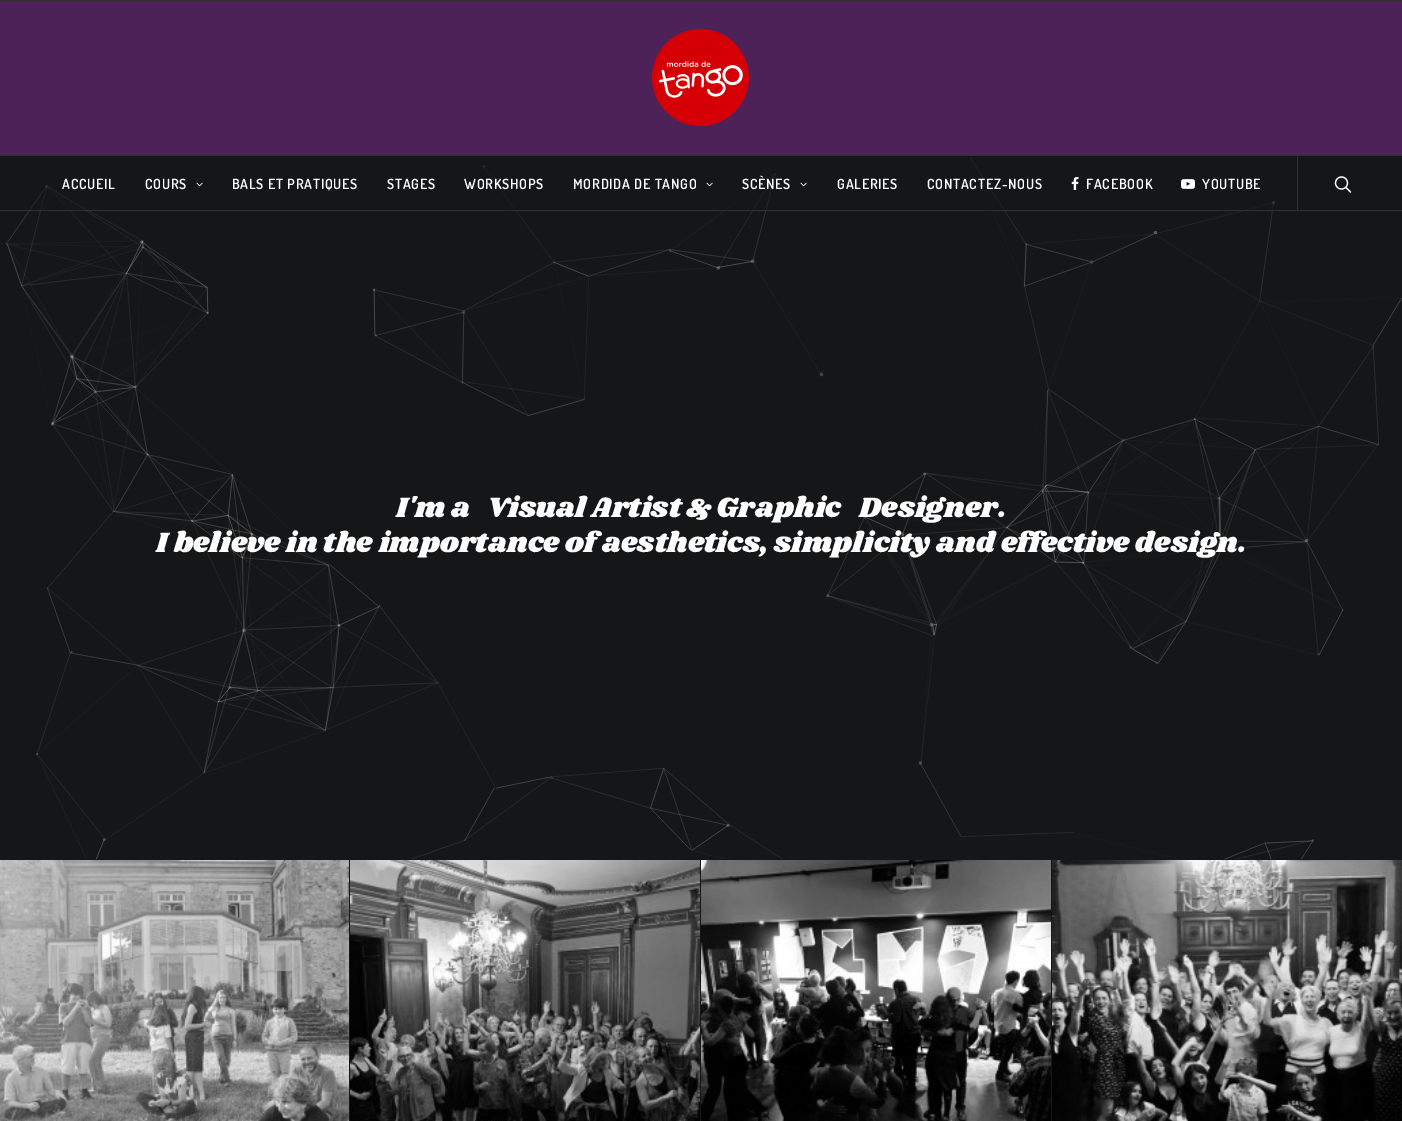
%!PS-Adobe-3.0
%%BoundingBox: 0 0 1402 1121
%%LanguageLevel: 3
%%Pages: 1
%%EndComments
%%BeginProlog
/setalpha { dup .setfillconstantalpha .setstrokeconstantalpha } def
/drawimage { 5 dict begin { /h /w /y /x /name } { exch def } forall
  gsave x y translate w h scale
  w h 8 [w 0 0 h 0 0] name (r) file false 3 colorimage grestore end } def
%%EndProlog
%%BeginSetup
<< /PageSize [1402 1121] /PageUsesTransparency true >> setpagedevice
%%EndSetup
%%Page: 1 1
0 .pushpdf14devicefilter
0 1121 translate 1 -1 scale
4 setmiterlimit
0.188 0.192 0.2 setrgbcolor
0 0 1402 1121 rectfill
0.298 0.133 0.345 setrgbcolor
0 1 1402 154 rectfill
(images/1.raw) 652 29 97 97 drawimage
0.078 0.086 0.094 setrgbcolor
0 156 1402 965 rectfill
(images/6.raw) 5 158 1397 701 drawimage
0.5 setalpha
29 158 1247 52 rectfill
1 setalpha
0.188 0.192 0.2 setrgbcolor
0 210 1402 1 rectfill
(images/2.raw) 196 182 7 5 drawimage
(images/2.raw) 706 182 7 5 drawimage
(images/2.raw) 800 182 7 5 drawimage
(images/3.raw) 1071 177 8 13 drawimage
(images/4.raw) 1181 179 14 10 drawimage
1297 156 1 54 rectfill
(images/5.raw) 1334 176 18 17 drawimage
(images/7.raw) 0 860 349 261 drawimage
(images/8.raw) 350 860 350 261 drawimage
(images/9.raw) 701 860 350 261 drawimage
(images/10.raw) 1052 860 350 261 drawimage
/Dosis-SemiBold [14 0 0 -14 0 0] selectfont
1 setgray
62 189 moveto 0.75 0 (ACCUEIL) ashow
145 189 moveto 0.75 0 (COURS) ashow
232 189 moveto 0.75 0 (BALS ET PRATIQUES) ashow
387 189 moveto 0.75 0 (STAGES) ashow
464 189 moveto 0.75 0 (WORKSHOPS) ashow
573 189 moveto 0.75 0 (MORDIDA DE TANGO) ashow
742 189 moveto 0.75 0 (SCÈNES) ashow
837 189 moveto 0.75 0 (GALERIES) ashow
927 189 moveto 0.75 0 (CONTACTEZ-NOUS) ashow
1086 189 moveto 0.75 0 (FACEBOOK) ashow
1202 189 moveto 0.75 0 (YOUTUBE) ashow
/Shrikhand-Regular [29 0 0 -29 0 0] selectfont
396 517 moveto (I'm a) show
487 517 moveto (Visual Artist & Graphic) show
859 517 moveto (Designer.) show
156 552 moveto (I believe in the importance of aesthetics, simplicity and effective design.) show
.poppdf14devicefilter showpage
%%EOF
